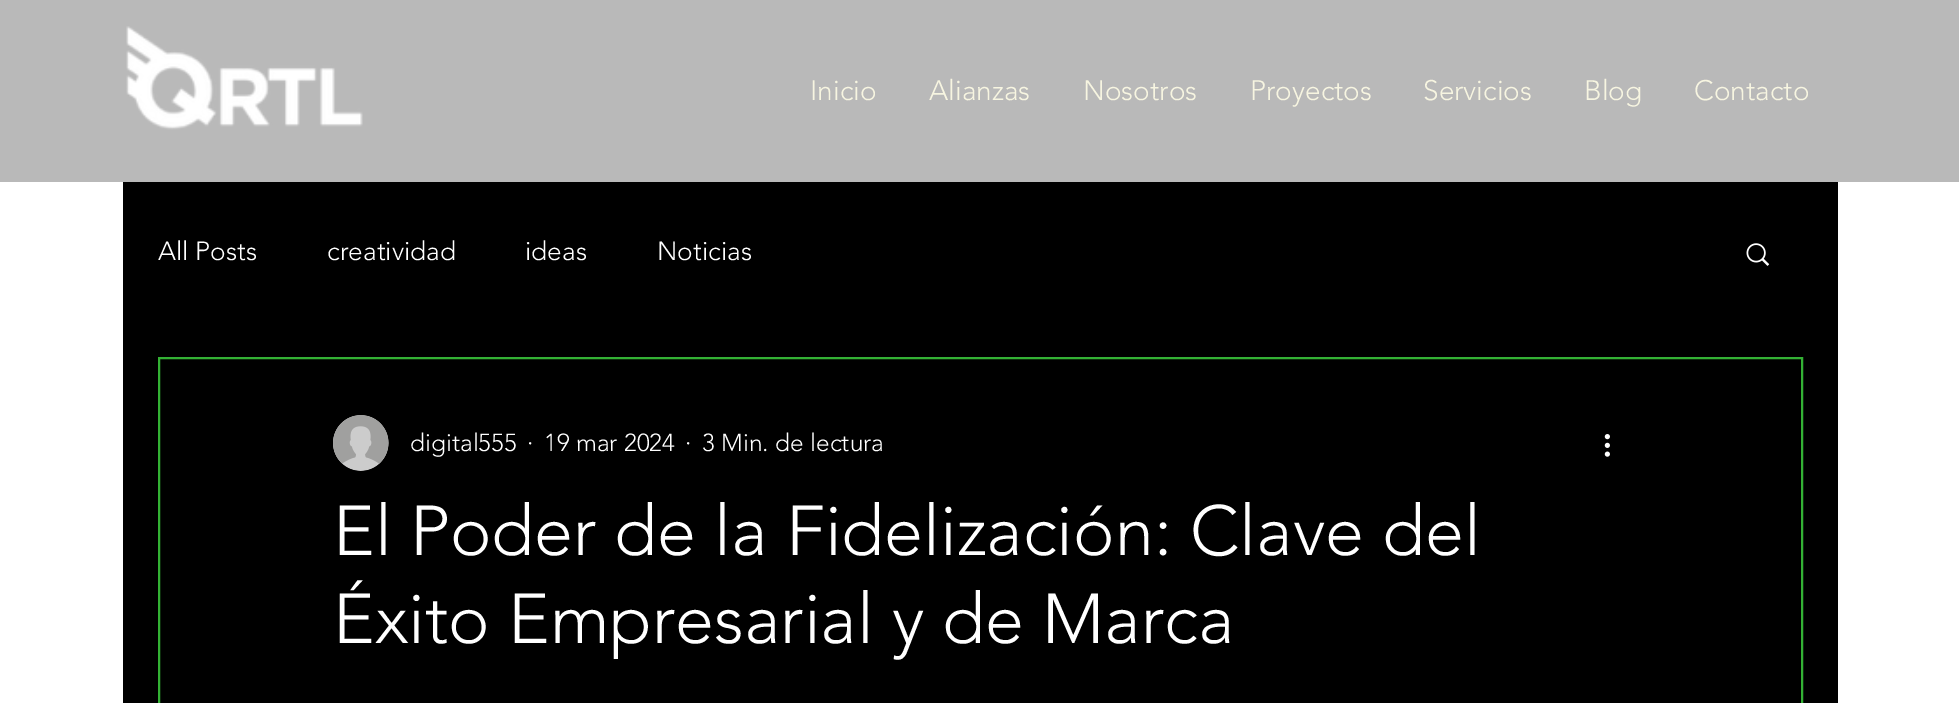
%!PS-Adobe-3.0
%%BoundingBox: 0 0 1959 703
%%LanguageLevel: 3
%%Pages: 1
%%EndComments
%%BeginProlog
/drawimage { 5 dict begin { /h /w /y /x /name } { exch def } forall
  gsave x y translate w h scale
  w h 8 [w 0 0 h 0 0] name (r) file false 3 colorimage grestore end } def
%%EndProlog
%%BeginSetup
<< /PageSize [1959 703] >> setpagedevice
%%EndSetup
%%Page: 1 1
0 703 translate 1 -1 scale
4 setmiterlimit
1 setgray
0 0 1959 703 rectfill
0.725 setgray
0 0 1959 182 rectfill
(images/1.raw) 126 26 237 104 drawimage
0 setgray
123 182 1715 521 rectfill
(images/2.raw) 1746 243 24 23 drawimage
0.2 0.694 0.204 setrgbcolor
2 setlinewidth
159 358 1643 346 rectstroke
(images/3.raw) 333 415 56 56 drawimage
(images/4.raw) 1604 434 6 23 drawimage
/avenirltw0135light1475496-Light [28 0 0 -28 0 0] selectfont
0.969 0.961 0.882 setrgbcolor
810 100 moveto (Inicio) show
929 100 moveto (Alianzas) show
1083 100 moveto (Nosotros) show
1250 100 moveto (Proyectos) show
1423 100 moveto (Servicios) show
1584 100 moveto (Blog) show
1694 100 moveto (Contacto) show
/avenirltw0135light1475496-Light [26.25 0 0 -26.25 0 0] selectfont
1 setgray
158 260 moveto (All Posts) show
327 260 moveto (creatividad) show
525 260 moveto (ideas) show
657 260 moveto (Noticias) show
/avenirltw0135light1475496-Light [24.5 0 0 -24.5 0 0] selectfont
410 451 moveto (digital555) show
527 451 moveto (·) show
544 451 moveto (19 mar 2024) show
685 451 moveto (·) show
702 451 moveto (3 Min. de lectura) show
/avenirltw0135light1475496-Light [70 0 0 -70 0 0] selectfont
333 555 moveto (El Poder de la Fidelización: Clave del) show
333 643 moveto (Éxito Empresarial y de Marca) show
showpage
%%EOF
